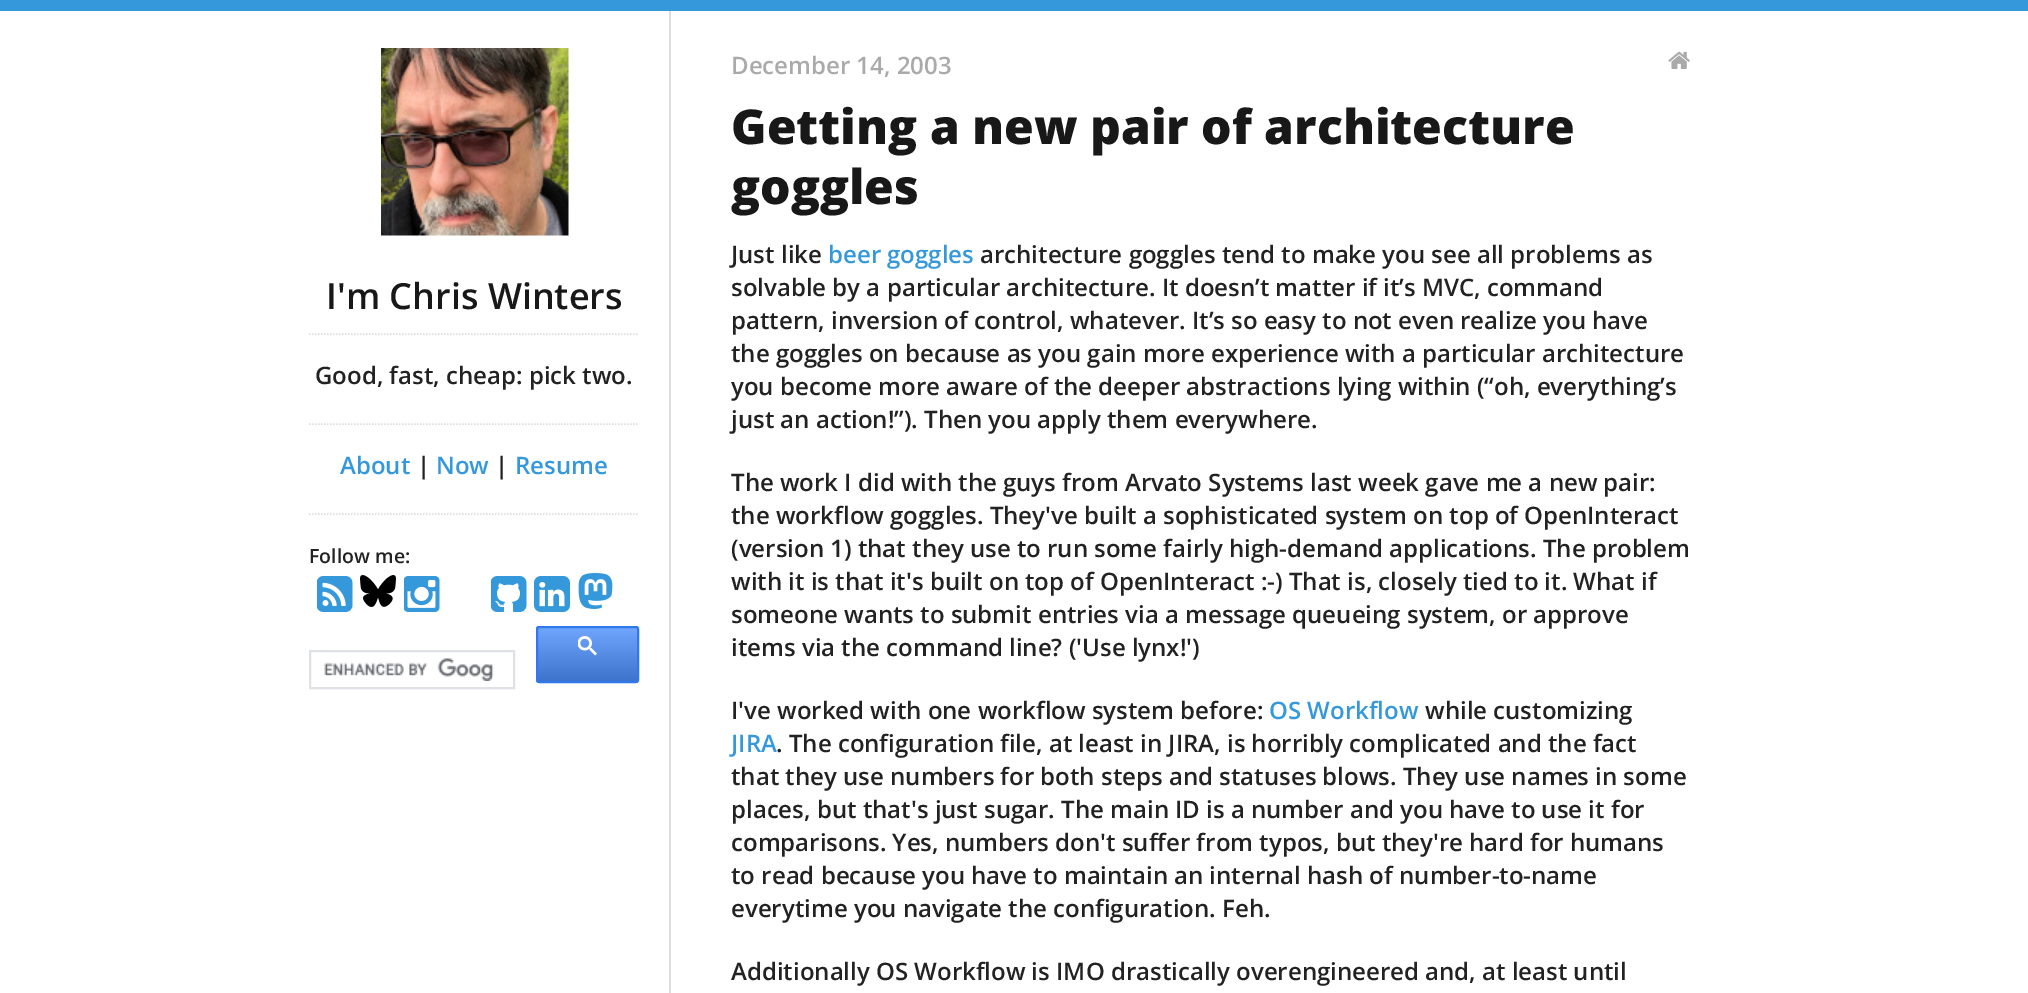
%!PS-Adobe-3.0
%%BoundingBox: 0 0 2028 993
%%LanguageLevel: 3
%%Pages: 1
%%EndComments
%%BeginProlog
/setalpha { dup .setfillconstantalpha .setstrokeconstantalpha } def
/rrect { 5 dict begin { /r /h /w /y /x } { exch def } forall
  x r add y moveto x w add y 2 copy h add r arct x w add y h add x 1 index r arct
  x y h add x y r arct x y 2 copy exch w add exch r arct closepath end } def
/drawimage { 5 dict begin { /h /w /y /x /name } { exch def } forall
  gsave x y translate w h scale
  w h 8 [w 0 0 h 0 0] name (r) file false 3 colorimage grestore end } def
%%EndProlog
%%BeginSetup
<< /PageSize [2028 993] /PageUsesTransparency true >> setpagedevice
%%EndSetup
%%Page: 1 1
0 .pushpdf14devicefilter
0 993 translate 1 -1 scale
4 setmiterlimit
1 setgray
0 0 2028 993 rectfill
0.204 0.596 0.859 setrgbcolor
0 0 2028 11 rectfill
(images/1.raw) 381 48 188 188 drawimage
0.867 setgray
1.5 setlinewidth
[1.5 1.5] 0 setdash
newpath 309 334 moveto 639 334 lineto stroke
newpath 309 424 moveto 639 424 lineto stroke
newpath 309 514 moveto 639 514 lineto stroke
(images/2.raw) 317 576 36 36 drawimage
(images/3.raw) 360 575 36 32 drawimage
(images/4.raw) 404 576 36 36 drawimage
(images/5.raw) 491 576 36 36 drawimage
(images/6.raw) 534 576 36 36 drawimage
(images/7.raw) 578 573 35 36 drawimage
0.875 0.882 0.898 setrgbcolor
2 setlinewidth
[] 0 setdash
310 651 204 37 rectstroke
(images/8.raw) 324 658 170 23 drawimage
0.302 0.565 0.996 setrgbcolor
536 626 103 57 3 rrect fill
0.2 setalpha
gsave newpath 536 627 moveto 639 627 lineto 639 681 lineto 536 681 lineto closepath clip newpath
<< /ShadingType 2 /ColorSpace /DeviceRGB /Coords [587 627 587 681] /Extend [true true] /Function << /FunctionType 2 /Domain [0 1] /C0 [1 1 1] /C1 [0 0 0] /N 1 >> >> shfill grestore
1 setalpha
0.188 0.475 0.929 setrgbcolor
537 627 101 55 2 rrect stroke
(images/9.raw) 578 636 19 20 drawimage
0.867 setgray
669 11 2 982 rectfill
(images/10.raw) 1668 51 22 18 drawimage
/OpenSans-SemiBold [36 0 0 -36 0 0] selectfont
0.094 setgray
326 309 moveto (I'm Chris Winters) show
/OpenSans-SemiBold [24 0 0 -24 0 0] selectfont
0.133 setgray
315 384 moveto (Good, fast, cheap: pick two.) show
0.204 0.596 0.859 setrgbcolor
340 474 moveto (About) show
0.133 setgray
417 474 moveto (|) show
0.204 0.596 0.859 setrgbcolor
436 474 moveto (Now) show
0.133 setgray
495 474 moveto (|) show
0.204 0.596 0.859 setrgbcolor
515 474 moveto (Resume) show
/OpenSans-SemiBold [19.5 0 0 -19.5 0 0] selectfont
0.133 setgray
309 563 moveto (Follow me:) show
/OpenSans-SemiBold [24 0 0 -24 0 0] selectfont
0.667 setgray
731 74 moveto (December 14, 2003) show
/OpenSans-ExtraBold [48 0 0 -48 0 0] selectfont
0.094 setgray
731 144 moveto (Getting a new pair of architecture) show
731 204 moveto (goggles) show
/OpenSans-SemiBold [24 0 0 -24 0 0] selectfont
0.133 setgray
731 263 moveto (Just like) show
0.204 0.596 0.859 setrgbcolor
828 263 moveto (beer goggles) show
0.133 setgray
980 263 moveto (architecture goggles tend to make you see all problems as) show
731 296 moveto (solvable by a particular architecture. It doesn’t matter if it’s MVC, command) show
731 329 moveto (pattern, inversion of control, whatever. It’s so easy to not even realize you have) show
731 362 moveto (the goggles on because as you gain more experience with a particular architecture) show
731 395 moveto (you become more aware of the deeper abstractions lying within \(“oh, everything’s) show
731 428 moveto (just an action!”\). Then you apply them everywhere.) show
731 491 moveto (The work I did with the guys from Arvato Systems last week gave me a new pair:) show
731 524 moveto (the workflow goggles. They've built a sophisticated system on top of OpenInteract) show
731 557 moveto (\(version 1\) that they use to run some fairly high-demand applications. The problem) show
731 590 moveto (with it is that it's built on top of OpenInteract :-\) That is, closely tied to it. What if) show
731 623 moveto (someone wants to submit entries via a message queueing system, or approve) show
731 656 moveto (items via the command line? \('Use lynx!'\)) show
731 719 moveto (I've worked with one workflow system before:) show
0.204 0.596 0.859 setrgbcolor
1269 719 moveto (OS Workflow) show
0.133 setgray
1425 719 moveto (while customizing) show
0.204 0.596 0.859 setrgbcolor
731 752 moveto (JIRA) show
0.133 setgray
776 752 moveto (. The configuration file, at least in JIRA, is horribly complicated and the fact) show
731 785 moveto (that they use numbers for both steps and statuses blows. They use names in some) show
731 818 moveto (places, but that's just sugar. The main ID is a number and you have to use it for) show
731 851 moveto (comparisons. Yes, numbers don't suffer from typos, but they're hard for humans) show
731 884 moveto (to read because you have to maintain an internal hash of number-to-name) show
731 917 moveto (everytime you navigate the configuration. Feh.) show
731 980 moveto (Additionally OS Workflow is IMO drastically overengineered and, at least until) show
.poppdf14devicefilter showpage
%%EOF
